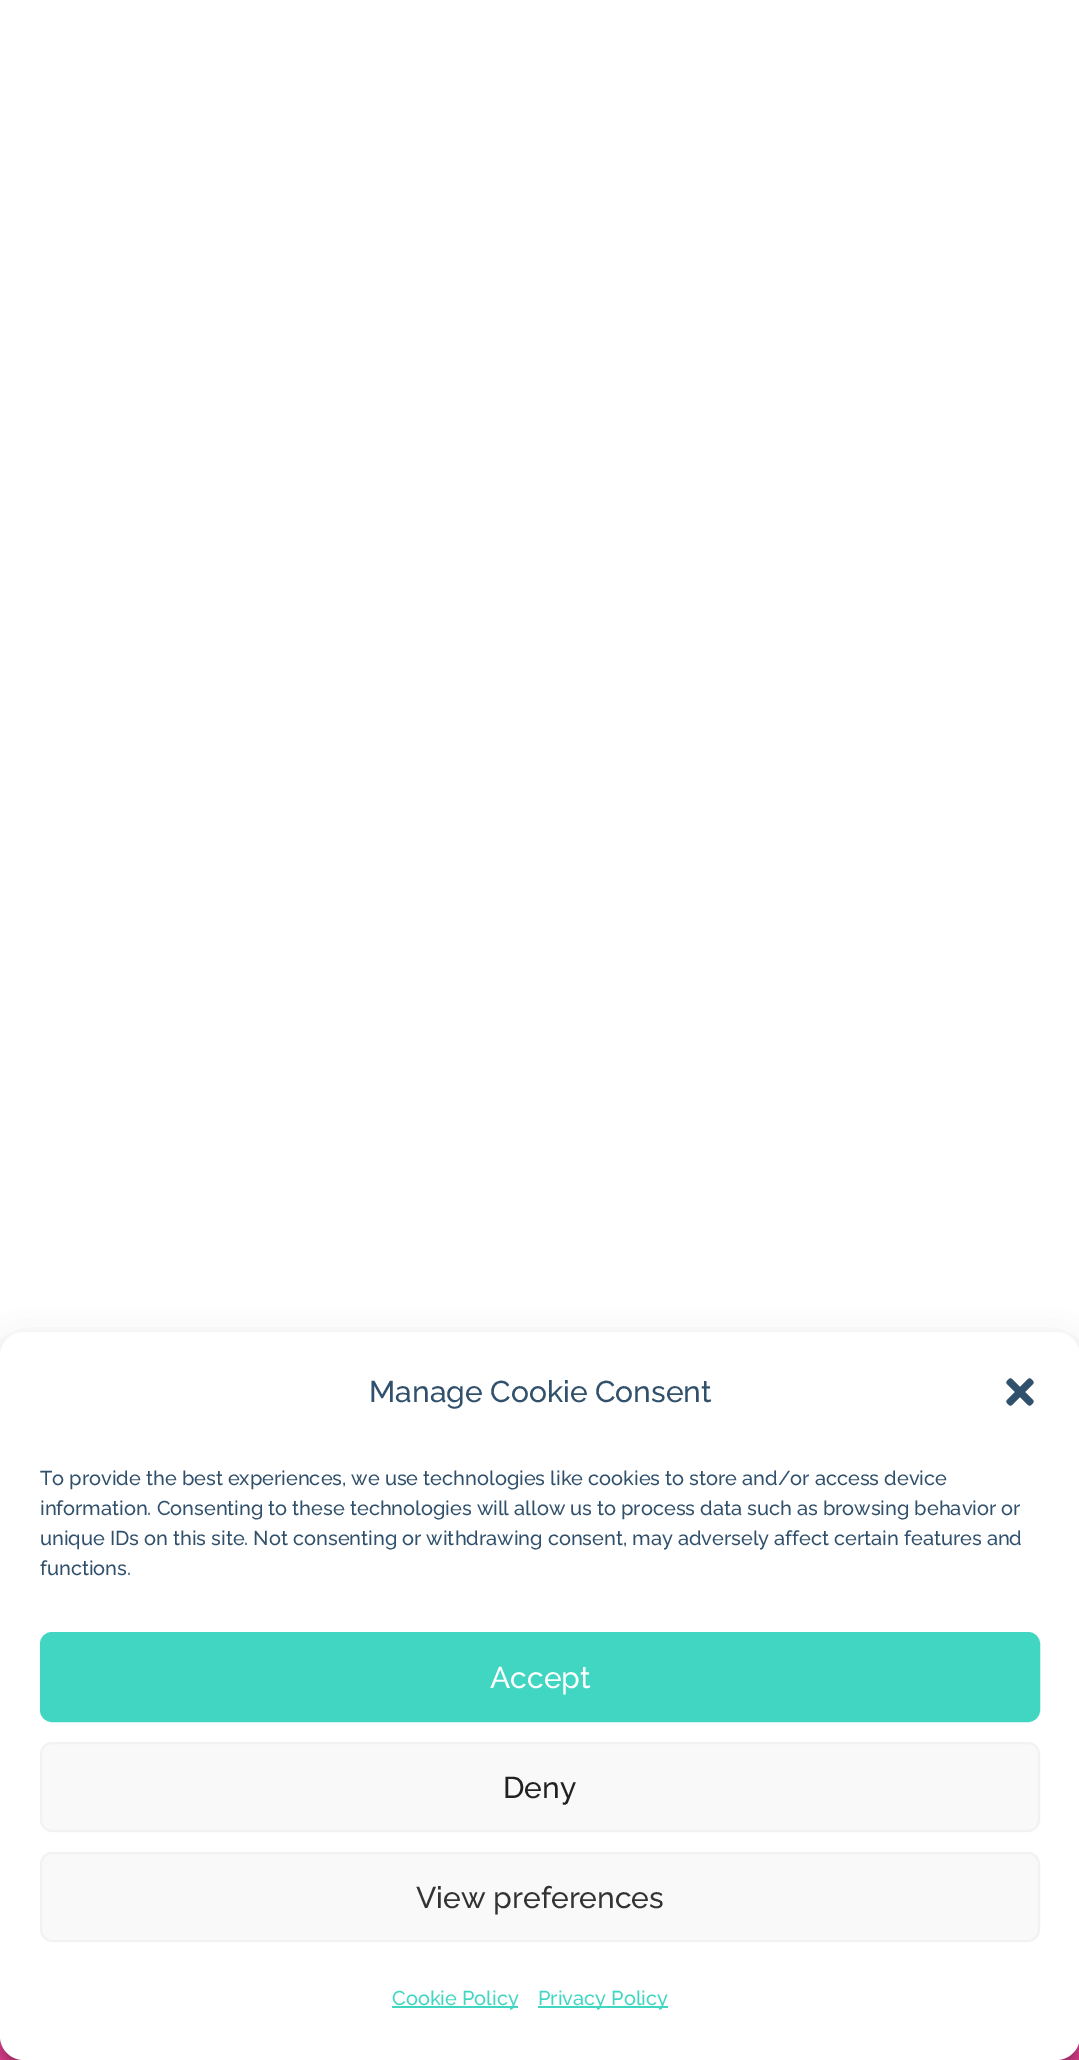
%!PS-Adobe-3.0
%%BoundingBox: 0 0 1079 2060
%%LanguageLevel: 3
%%Pages: 1
%%EndComments
%%BeginProlog
/setalpha { dup .setfillconstantalpha .setstrokeconstantalpha } def
/rrect { 5 dict begin { /r /h /w /y /x } { exch def } forall
  x r add y moveto x w add y 2 copy h add r arct x w add y h add x 1 index r arct
  x y h add x y r arct x y 2 copy exch w add exch r arct closepath end } def
/softshadow { 12 dict begin { /a /b /q /h /w /y /x } { exch def } forall gsave /was 0 def
  9 -2 -9 { dup b mul 4 div /e exch def 1 sub .425 mul 2.718 exch exp 1 add a .99 .min exch div /now exch def
    1 1 now sub 1 was sub div sub setalpha /was now def
    w h .min e 2 mul add 0 gt { x e sub y e sub w e 2 mul add h e 2 mul add
      q e add b .6 mul add w h .min 2 div e add .min 0 .max rrect fill } if } for grestore end } def
/drawimage { 5 dict begin { /h /w /y /x /name } { exch def } forall
  gsave x y translate w h scale
  w h 8 [w 0 0 h 0 0] name (r) file false 3 colorimage grestore end } def
%%EndProlog
%%BeginSetup
<< /PageSize [1079 2060] /PageUsesTransparency true >> setpagedevice
%%EndSetup
%%Page: 1 1
0 .pushpdf14devicefilter
0 2060 translate 1 -1 scale
4 setmiterlimit
1 setgray
0 0 1079 2060 rectfill
0.957 0.259 0.596 setrgbcolor
0 2036 1079 24 rectfill
0 setgray
0 1344 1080 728 24 6 0.23 softshadow
0 1352 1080 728 24 20 0.19 softshadow
1 setgray
0 1332 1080 728 24 rrect fill
(images/1.raw) 1006 1378 28 28 drawimage
0.255 0.839 0.761 setrgbcolor
41 1633 998 88 11 rrect gsave fill grestore
2 setlinewidth
stroke
0.976 setgray
41 1743 998 88 11 rrect gsave fill grestore
0.949 setgray
stroke
0.976 setgray
41 1853 998 88 11 rrect gsave fill grestore
0.949 setgray
stroke
0.255 0.839 0.761 setrgbcolor
392 2006 126 2 rectfill
538 2006 130 2 rectfill
/Raleway-Medium [30 0 0 -30 0 0] selectfont
0.192 0.314 0.424 setrgbcolor
369 1402 moveto (Manage Cookie Consent) show
/Raleway-Medium [20 0 0 -20 0 0] selectfont
40 1485 moveto (To provide the best experiences, we use technologies like cookies to store and/or access device) show
40 1515 moveto (information. Consenting to these technologies will allow us to process data such as browsing behavior or) show
40 1545 moveto (unique IDs on this site. Not consenting or withdrawing consent, may adversely affect certain features and) show
40 1575 moveto (functions.) show
/Raleway-Medium [30 0 0 -30 0 0] selectfont
1 setgray
490 1688 moveto (Accept) show
0.133 setgray
503 1798 moveto (Deny) show
0.2 setgray
416 1908 moveto (View preferences) show
/Raleway-Medium [20 0 0 -20 0 0] selectfont
0.255 0.839 0.761 setrgbcolor
392 2005 moveto (Cookie Policy) show
538 2005 moveto (Privacy Policy) show
.poppdf14devicefilter showpage
%%EOF
